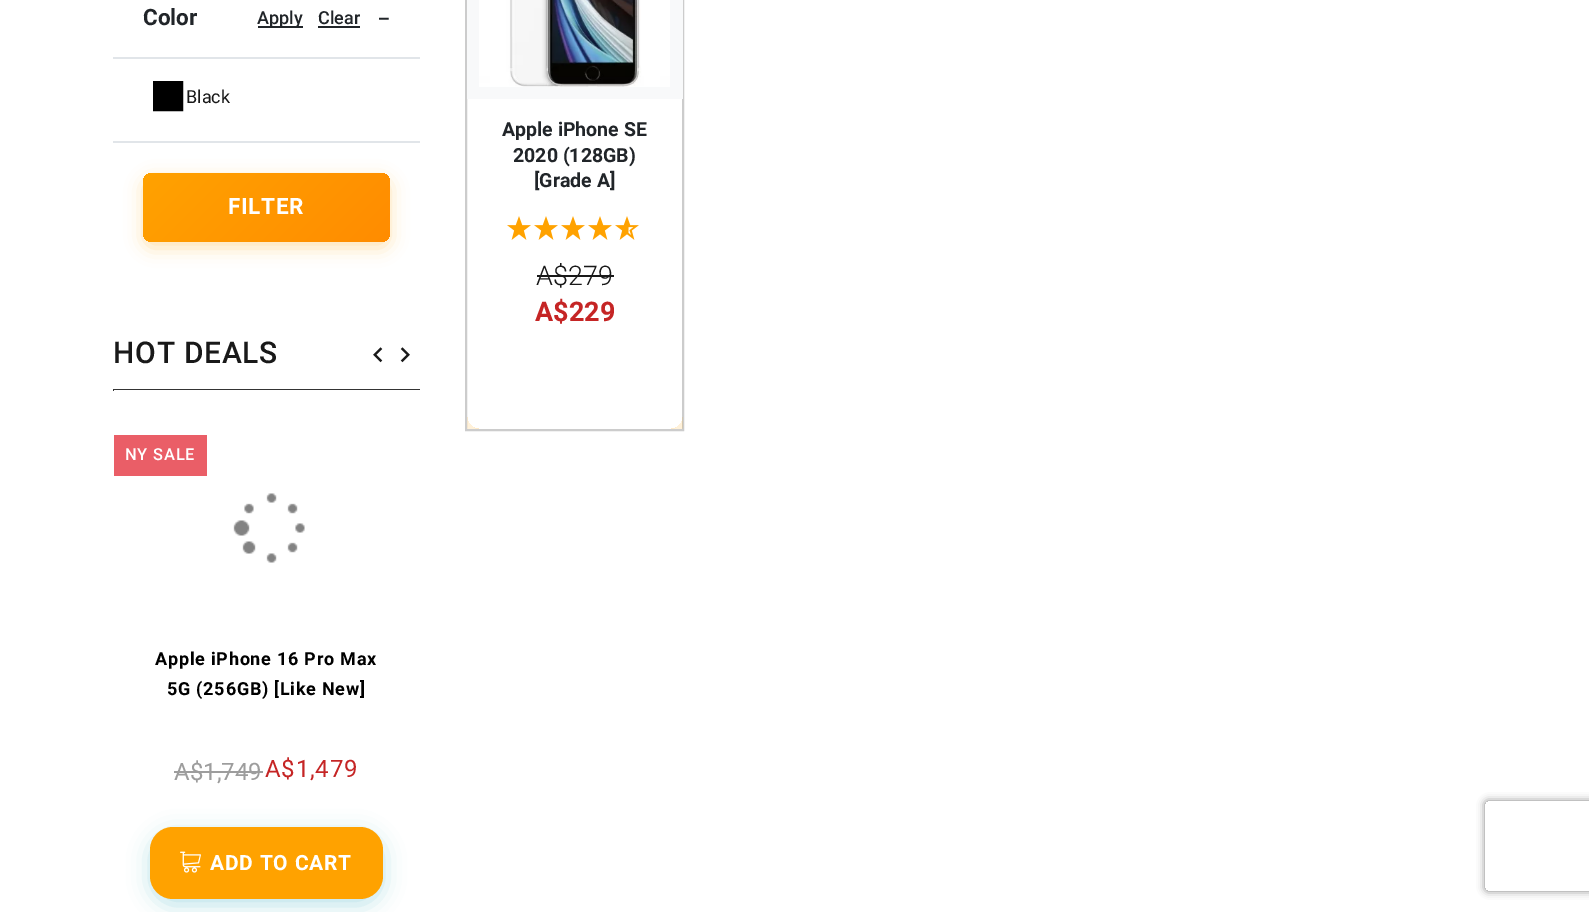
%!PS-Adobe-3.0
%%BoundingBox: 0 0 1589 912
%%LanguageLevel: 3
%%Pages: 1
%%EndComments
%%BeginProlog
/setalpha { dup .setfillconstantalpha .setstrokeconstantalpha } def
/rrect { 5 dict begin { /r /h /w /y /x } { exch def } forall
  x r add y moveto x w add y 2 copy h add r arct x w add y h add x 1 index r arct
  x y h add x y r arct x y 2 copy exch w add exch r arct closepath end } def
/softshadow { 12 dict begin { /a /b /q /h /w /y /x } { exch def } forall gsave /was 0 def
  9 -2 -9 { dup b mul 4 div /e exch def 1 sub .425 mul 2.718 exch exp 1 add a .99 .min exch div /now exch def
    1 1 now sub 1 was sub div sub setalpha /was now def
    w h .min e 2 mul add 0 gt { x e sub y e sub w e 2 mul add h e 2 mul add
      q e add b .6 mul add w h .min 2 div e add .min 0 .max rrect fill } if } for grestore end } def
/drawimage { 5 dict begin { /h /w /y /x /name } { exch def } forall
  gsave x y translate w h scale
  w h 8 [w 0 0 h 0 0] name (r) file false 3 colorimage grestore end } def
%%EndProlog
%%BeginSetup
<< /PageSize [1589 912] /PageUsesTransparency true >> setpagedevice
%%EndSetup
%%Page: 1 1
0 .pushpdf14devicefilter
0 912 translate 1 -1 scale
4 setmiterlimit
1 setgray
0 0 1589 912 rectfill
0.882 0.898 0.914 setrgbcolor
113 57 307 2 rectfill
0.129 0.145 0.161 setrgbcolor
258 26 45 2 rectfill
318 26 42 2 rectfill
0 setgray
2 setlinewidth
154 82 28 28 rectstroke
155 83 26 26 rectfill
0.882 0.898 0.914 setrgbcolor
113 141 307 2 rectfill
1 0.635 0 setrgbcolor
143 179 247 69 9 9 0.3 softshadow
gsave 143 173 247 69 9 rrect clip newpath
<< /ShadingType 2 /ColorSpace /DeviceRGB /Coords [187 128 345 286] /Extend [true true] /Function << /FunctionType 2 /Domain [0 1] /C0 [1 0.635 0] /C1 [1 0.549 0] /N 1 >> >> shfill grestore
0.204 setgray
113 389 307 2 rectfill
(images/1.raw) 373 347 10 16 drawimage
(images/2.raw) 400 347 10 16 drawimage
1 setgray
114 390 306 1 rectfill
0.918 0.369 0.404 setrgbcolor
114 435 93 41 rectfill
(images/3.raw) 233 493 72 70 drawimage
0.616 setgray
174 771 89 2 rectfill
0.09 0.635 0.722 setrgbcolor
150 833 233 72 23 11 0.3 softshadow
1 0.635 0 setrgbcolor
150 827 233 72 23 rrect fill
(images/4.raw) 180 851 21 22 drawimage
0.8 setgray
466 -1 217 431 rectstroke
0.973 0.976 0.98 setrgbcolor
467 0 216 99 rectfill
(images/5.raw) 479 0 191 87 drawimage
(images/6.raw) 507 216 24 24 drawimage
(images/6.raw) 534 216 24 24 drawimage
(images/6.raw) 561 216 24 24 drawimage
(images/6.raw) 588 216 24 24 drawimage
(images/7.raw) 615 216 24 24 drawimage
0.098 setgray
537 275 77 2 rectfill
gsave
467 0 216 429 rectclip
newpath 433 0 moveto 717 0 lineto 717 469 lineto 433 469 lineto closepath 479 -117 moveto 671 -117 lineto 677.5 -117 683 -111.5 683 -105 curveto 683 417 lineto 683 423.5 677.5 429 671 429 curveto 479 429 lineto 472.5 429 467 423.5 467 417 curveto 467 -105 lineto 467 -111.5 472.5 -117 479 -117 curveto closepath eoclip newpath
1 0.635 0 setrgbcolor
467 -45 216 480 12 11 0.3 softshadow
grestore
gsave
newpath 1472 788 moveto 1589 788 lineto 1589 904 lineto 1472 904 lineto closepath 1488 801 moveto 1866 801 lineto 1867.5 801 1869 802.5 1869 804 curveto 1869 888 lineto 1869 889.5 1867.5 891 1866 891 curveto 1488 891 lineto 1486.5 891 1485 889.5 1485 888 curveto 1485 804 lineto 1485 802.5 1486.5 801 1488 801 curveto closepath eoclip newpath
0.502 setgray
1485 801 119 90 3 4 1 softshadow
grestore
/Roboto-Bold [22.5 0 0 -22.5 0 0] selectfont
0.129 0.145 0.161 setrgbcolor
143 25 moveto (Color) show
/Roboto-Medium [18 0 0 -18 0 0] selectfont
257 24 moveto (Apply) show
318 24 moveto (Clear) show
/Roboto-Light [42 0 0 -42 0 0] selectfont
378 32 moveto (-) show
/Roboto-Regular [18 0 0 -18 0 0] selectfont
0.098 setgray
186 103 moveto (Black) show
/Roboto-Bold [22.5 0 0 -22.5 0 0] selectfont
1 setgray
228 214 moveto 0.75 0 (FILTER) ashow
/Roboto-Medium [30 0 0 -30 0 0] selectfont
0.098 setgray
113 363 moveto 0.75 0 (HOT DEALS) ashow
/Roboto-Medium [16.5 0 0 -16.5 0 0] selectfont
1 setgray
125 460 moveto 0.75 0 (NY SALE) ashow
/Roboto-Bold [18 0 0 -18 0 0] selectfont
0 setgray
155 665 moveto 0.75 0 (Apple iPhone 16 Pro Max) ashow
167 695 moveto 0.75 0 (5G \(256GB\) [Like New]) ashow
/Roboto-Regular [24 0 0 -24 0 0] selectfont
0.616 setgray
174 780 moveto (A$1,749) show
0.773 0.145 0.145 setrgbcolor
265 777 moveto 0.75 0 (A$1,479) ashow
/Roboto-Bold [21 0 0 -21 0 0] selectfont
1 setgray
210 870 moveto 0.75 0 (ADD TO CART) ashow
/Roboto-Bold [19.5 0 0 -19.5 0 0] selectfont
0.129 0.145 0.161 setrgbcolor
502 136 moveto (Apple iPhone SE) show
513 162 moveto (2020 \(128GB\)) show
534 187 moveto ([Grade A]) show
/Roboto-Light [27 0 0 -27 0 0] selectfont
0.098 setgray
536 285 moveto (A$279) show
/Roboto-Bold [27 0 0 -27 0 0] selectfont
0.773 0.145 0.145 setrgbcolor
535 321 moveto (A$229) show
.poppdf14devicefilter showpage
%%EOF
